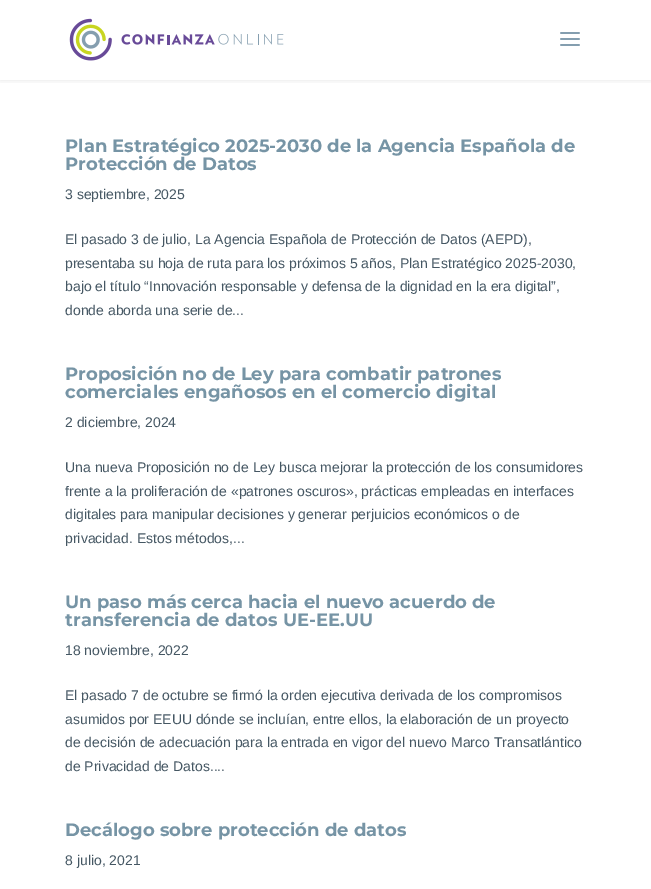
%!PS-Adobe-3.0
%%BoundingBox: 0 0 651 889
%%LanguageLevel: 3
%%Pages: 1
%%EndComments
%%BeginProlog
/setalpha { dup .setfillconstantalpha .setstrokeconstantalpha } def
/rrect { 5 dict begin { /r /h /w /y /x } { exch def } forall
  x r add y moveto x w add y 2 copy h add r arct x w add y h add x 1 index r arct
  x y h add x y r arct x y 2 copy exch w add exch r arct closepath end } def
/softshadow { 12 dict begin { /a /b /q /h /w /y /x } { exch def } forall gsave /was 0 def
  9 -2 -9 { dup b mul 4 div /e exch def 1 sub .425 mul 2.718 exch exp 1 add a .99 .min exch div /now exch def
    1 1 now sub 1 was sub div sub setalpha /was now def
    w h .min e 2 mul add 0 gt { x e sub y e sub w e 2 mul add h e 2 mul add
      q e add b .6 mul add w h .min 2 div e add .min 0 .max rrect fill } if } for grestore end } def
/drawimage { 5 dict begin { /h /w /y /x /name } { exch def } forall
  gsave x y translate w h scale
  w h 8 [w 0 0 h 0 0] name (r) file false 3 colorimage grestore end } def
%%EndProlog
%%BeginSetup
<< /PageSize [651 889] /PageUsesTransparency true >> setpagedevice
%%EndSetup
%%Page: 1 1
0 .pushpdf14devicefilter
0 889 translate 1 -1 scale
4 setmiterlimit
1 setgray
0 0 651 889 rectfill
gsave
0 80 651 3 rectclip
0 setgray
0 0 651 80 0 3.5 0.1 softshadow
grestore
(images/1.raw) 69 18 215 43 drawimage
(images/2.raw) 560 32 20 14 drawimage
/Montserrat-Bold [18 0 0 -18 0 0] selectfont
0.463 0.58 0.647 setrgbcolor
65 152 moveto (Plan Estratégico 2025-2030 de la Agencia Española de) show
65 170 moveto (Protección de Datos) show
/LiberationSans-Regular [14 0 0 -14 0 0] selectfont
0.271 0.341 0.388 setrgbcolor
65 199 moveto (3 septiembre, 2025) show
65 244 moveto (El pasado 3 de julio, La Agencia Española de Protección de Datos \(AEPD\),) show
65 268 moveto (presentaba su hoja de ruta para los próximos 5 años, Plan Estratégico 2025-2030,) show
65 291 moveto (bajo el título “Innovación responsable y defensa de la dignidad en la era digital”,) show
65 315 moveto (donde aborda una serie de...) show
/Montserrat-Bold [18 0 0 -18 0 0] selectfont
0.463 0.58 0.647 setrgbcolor
65 380 moveto (Proposición no de Ley para combatir patrones) show
65 398 moveto (comerciales engañosos en el comercio digital) show
/LiberationSans-Regular [14 0 0 -14 0 0] selectfont
0.271 0.341 0.388 setrgbcolor
65 427 moveto (2 diciembre, 2024) show
65 472 moveto (Una nueva Proposición no de Ley busca mejorar la protección de los consumidores) show
65 496 moveto (frente a la proliferación de «patrones oscuros», prácticas empleadas en interfaces) show
65 519 moveto (digitales para manipular decisiones y generar perjuicios económicos o de) show
65 543 moveto (privacidad. Estos métodos,...) show
/Montserrat-Bold [18 0 0 -18 0 0] selectfont
0.463 0.58 0.647 setrgbcolor
65 608 moveto (Un paso más cerca hacia el nuevo acuerdo de) show
65 626 moveto (transferencia de datos UE-EE.UU) show
/LiberationSans-Regular [14 0 0 -14 0 0] selectfont
0.271 0.341 0.388 setrgbcolor
65 655 moveto (18 noviembre, 2022) show
65 700 moveto (El pasado 7 de octubre se firmó la orden ejecutiva derivada de los compromisos) show
65 724 moveto (asumidos por EEUU dónde se incluían, entre ellos, la elaboración de un proyecto) show
65 747 moveto (de decisión de adecuación para la entrada en vigor del nuevo Marco Transatlántico) show
65 771 moveto (de Privacidad de Datos....) show
/Montserrat-Bold [18 0 0 -18 0 0] selectfont
0.463 0.58 0.647 setrgbcolor
65 836 moveto (Decálogo sobre protección de datos) show
/LiberationSans-Regular [14 0 0 -14 0 0] selectfont
0.271 0.341 0.388 setrgbcolor
65 865 moveto (8 julio, 2021) show
.poppdf14devicefilter showpage
%%EOF
